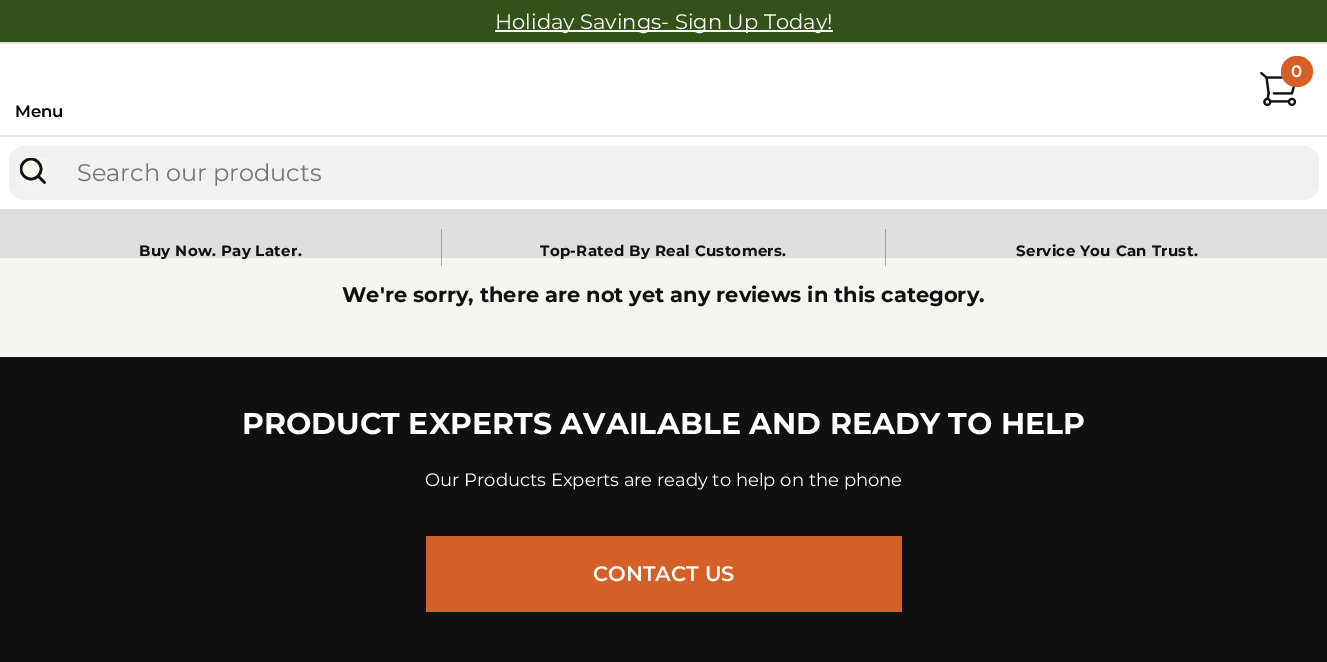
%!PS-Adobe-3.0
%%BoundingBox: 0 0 1327 662
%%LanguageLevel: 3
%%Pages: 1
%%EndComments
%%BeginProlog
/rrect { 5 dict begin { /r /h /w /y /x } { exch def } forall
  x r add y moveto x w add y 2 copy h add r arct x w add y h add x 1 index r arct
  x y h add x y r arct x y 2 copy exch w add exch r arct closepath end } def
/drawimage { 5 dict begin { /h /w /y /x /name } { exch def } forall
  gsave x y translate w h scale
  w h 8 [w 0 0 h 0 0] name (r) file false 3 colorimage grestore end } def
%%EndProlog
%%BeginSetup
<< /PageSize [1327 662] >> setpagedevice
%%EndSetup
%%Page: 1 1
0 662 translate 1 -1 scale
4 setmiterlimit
1 setgray
0 0 1327 662 rectfill
0.2 0.322 0.102 setrgbcolor
0 0 1327 42 rectfill
0.882 0.886 0.89 setrgbcolor
0 42 1327 2 rectfill
1 setgray
495 30 338 2 rectfill
0.882 0.886 0.89 setrgbcolor
0 135 1327 2 rectfill
(images/1.raw) 1260 71 37 36 drawimage
0.831 0.376 0.153 setrgbcolor
1281 56 32 31 15.5 rrect fill
0.882 0.886 0.89 setrgbcolor
0 209 1327 1 rectfill
0.945 0.945 0.949 setrgbcolor
9 146 1310 54 15 rrect fill
0.965 0.961 0.941 setrgbcolor
20 158 27 27 rectfill
0.063 setgray
2.6 setlinewidth
1 setlinecap
newpath 39 177 moveto 44.5 182.5 lineto stroke
gsave
20 158 27 27 rectclip
0 setlinecap
newpath 31 169 10 0 360 arc closepath stroke
grestore
0.871 setgray
0 210 1327 48 rectfill
0.635 setgray
885 229 1 37 rectfill
441 229 1 37 rectfill
0.965 0.961 0.941 setrgbcolor
0 258 1327 99 rectfill
0.678 0.675 0.667 setrgbcolor
885 258 1 8 rectfill
441 258 1 8 rectfill
0.063 setgray
0 357 1327 305 rectfill
0.831 0.376 0.153 setrgbcolor
426 536 476 76 rectfill
/Montserrat-Regular [21 0 0 -21 0 0] selectfont
1 setgray
495 29 moveto (Holiday Savings- Sign Up Today!) show
/Montserrat-SemiBold [16.5 0 0 -16.5 0 0] selectfont
1291 77 moveto (0) show
0 setgray
15 117 moveto (Menu) show
/Montserrat-Regular [24 0 0 -24 0 0] selectfont
0.459 setgray
77 181 moveto (Search our products) show
/Montserrat-Bold [15 0 0 -15 0 0] selectfont
0.063 setgray
139 256 moveto 0.3 0 (Buy Now. Pay Later.) ashow
540 256 moveto 0.3 0 (Top-Rated By Real Customers.) ashow
1016 256 moveto 0.3 0 (Service You Can Trust.) ashow
/Montserrat-Bold [21 0 0 -21 0 0] selectfont
342 302 moveto (We're sorry, there are not yet any reviews in this category.) show
/Montserrat-Bold [30 0 0 -30 0 0] selectfont
1 setgray
242 434 moveto (PRODUCT EXPERTS AVAILABLE AND READY TO HELP) show
/Montserrat-Regular [18 0 0 -18 0 0] selectfont
425 486 moveto (Our Products Experts are ready to help on the phone) show
/Montserrat-SemiBold [21 0 0 -21 0 0] selectfont
593 581 moveto (CONTACT US) show
showpage
%%EOF
